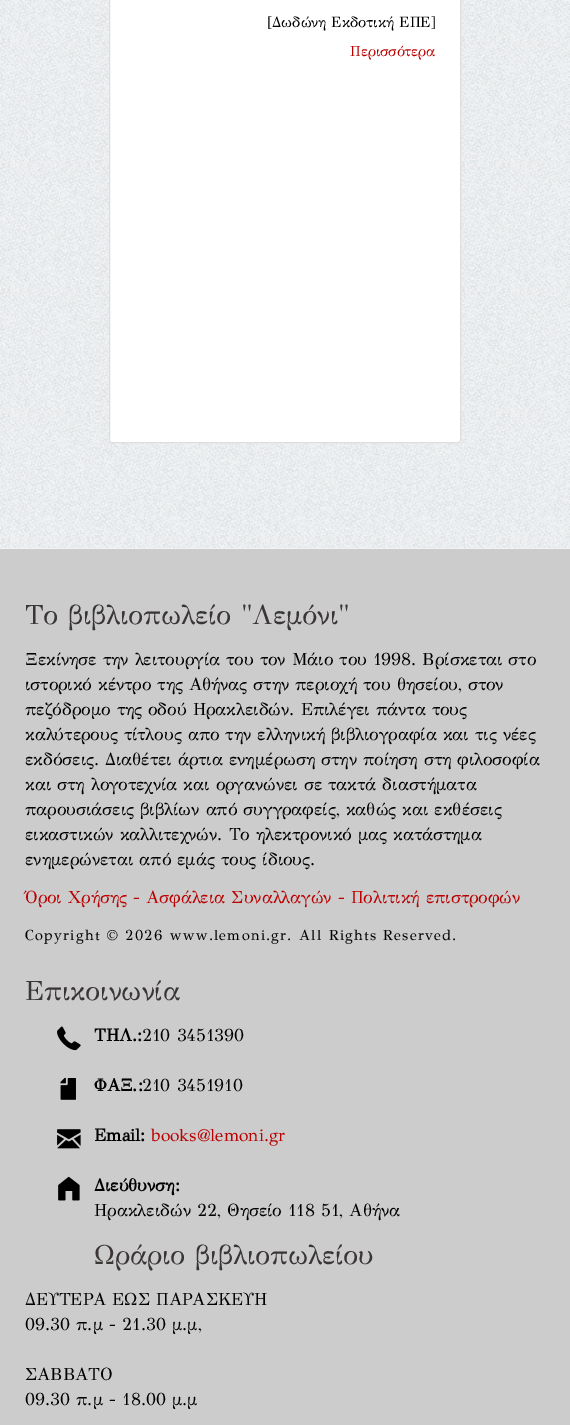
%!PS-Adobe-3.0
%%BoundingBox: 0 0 570 1425
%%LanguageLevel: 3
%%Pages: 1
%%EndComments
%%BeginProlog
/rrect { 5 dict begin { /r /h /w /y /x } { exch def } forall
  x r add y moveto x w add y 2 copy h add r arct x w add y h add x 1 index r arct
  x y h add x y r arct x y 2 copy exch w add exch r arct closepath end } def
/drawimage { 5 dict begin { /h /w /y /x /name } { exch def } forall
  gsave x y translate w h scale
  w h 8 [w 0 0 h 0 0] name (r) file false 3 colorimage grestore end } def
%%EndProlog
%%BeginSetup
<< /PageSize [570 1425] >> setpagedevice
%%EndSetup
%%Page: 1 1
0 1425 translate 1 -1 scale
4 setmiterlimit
1 setgray
0 0 570 1425 rectfill
(images/1.raw) 0 0 570 548 drawimage
109.5 -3.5 351 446 2 rrect gsave fill grestore
0.871 setgray
stroke
0.949 setgray
0 548 570 1 rectfill
0.8 setgray
0 549 570 876 rectfill
(images/2.raw) 57 1026 24 25 drawimage
(images/3.raw) 60 1077 16 23 drawimage
(images/4.raw) 57 1129 24 20 drawimage
(images/5.raw) 58 1176 22 25 drawimage
/GFSDidot-Regular [14.9 0 0 -14.9 0 0] selectfont
0 setgray
267 27 moveto ([Δωδώνη Εκδοτική ΕΠΕ]) show
/GFSDidot-Regular [14.6 0 0 -14.6 0 0] selectfont
0.733 0 0 setrgbcolor
350 56 moveto (Περισσότερα) show
/GFSDidot-Regular [27.5 0 0 -27.5 0 0] selectfont
0.231 0.212 0.212 setrgbcolor
25 624 moveto (Το βιβλιοπωλείο "Λεμόνι") show
/GFSDidot-Regular [17.5 0 0 -17.5 0 0] selectfont
0 setgray
25 665 moveto (Ξεκίνησε την λειτουργία του τον Μάιο του 1998. Βρίσκεται στο) show
25 690 moveto (ιστορικό κέντρο της Αθήνας στην περιοχή του θησείου, στον) show
25 715 moveto (πεζόδρομο της οδού Ηρακλειδών. Επιλέγει πάντα τους) show
25 740 moveto (καλύτερους τίτλους απο την ελληνική βιβλιογραφία και τις νέες) show
25 765 moveto (εκδόσεις. Διαθέτει άρτια ενημέρωση στην ποίηση στη φιλοσοφία) show
25 790 moveto (και στη λογοτεχνία και οργανώνει σε τακτά διαστήματα) show
25 815 moveto (παρουσιάσεις βιβλίων από συγγραφείς, καθώς και εκθέσεις) show
25 840 moveto (εικαστικών καλλιτεχνών. Το ηλεκτρονικό μας κατάστημα) show
25 865 moveto (ενημερώνεται από εμάς τους ίδιους.) show
0.733 0 0 setrgbcolor
25 903 moveto (Όροι Χρήσης - Ασφάλεια Συναλλαγών - Πολιτική επιστροφών) show
/GFSDidot-Regular [14.6 0 0 -14.6 0 0] selectfont
0 setgray
25 940 moveto 1.25 0 (Copyright © 2026 www.lemoni.gr. All Rights Reserved.) ashow
/GFSDidot-Regular [27.5 0 0 -27.5 0 0] selectfont
0.231 0.212 0.212 setrgbcolor
25 1000 moveto (Επικοινωνία) show
/GFSDidot-Bold [17.5 0 0 -17.5 0 0] selectfont
0 setgray
94 1041 moveto (ΤΗΛ.:) show
/GFSDidot-Regular [17.5 0 0 -17.5 0 0] selectfont
142 1041 moveto (210 3451390) show
/GFSDidot-Bold [17.5 0 0 -17.5 0 0] selectfont
94 1091 moveto (ΦΑΞ.:) show
/GFSDidot-Regular [17.5 0 0 -17.5 0 0] selectfont
142 1091 moveto (210 3451910) show
/GFSDidot-Bold [17.5 0 0 -17.5 0 0] selectfont
94 1141 moveto (Email:) show
/GFSDidot-Regular [17.5 0 0 -17.5 0 0] selectfont
0.733 0 0 setrgbcolor
151 1141 moveto (books@lemoni.gr) show
/GFSDidot-Bold [17.5 0 0 -17.5 0 0] selectfont
0 setgray
94 1191 moveto (Διεύθυνση:) show
/GFSDidot-Regular [17.5 0 0 -17.5 0 0] selectfont
94 1216 moveto (Ηρακλειδών 22, Θησείο 118 51, Αθήνα) show
/GFSDidot-Regular [27.5 0 0 -27.5 0 0] selectfont
0.231 0.212 0.212 setrgbcolor
94 1264 moveto (Ωράριο βιβλιοπωλείου) show
/GFSDidot-Regular [17.5 0 0 -17.5 0 0] selectfont
0 setgray
25 1305 moveto (ΔΕΥΤΕΡΑ ΕΩΣ ΠΑΡΑΣΚΕΥΗ) show
25 1330 moveto (09.30 π.μ - 21.30 μ.μ,) show
25 1380 moveto (ΣΑΒΒΑΤΟ) show
25 1405 moveto (09.30 π.μ - 18.00 μ.μ) show
showpage
%%EOF
